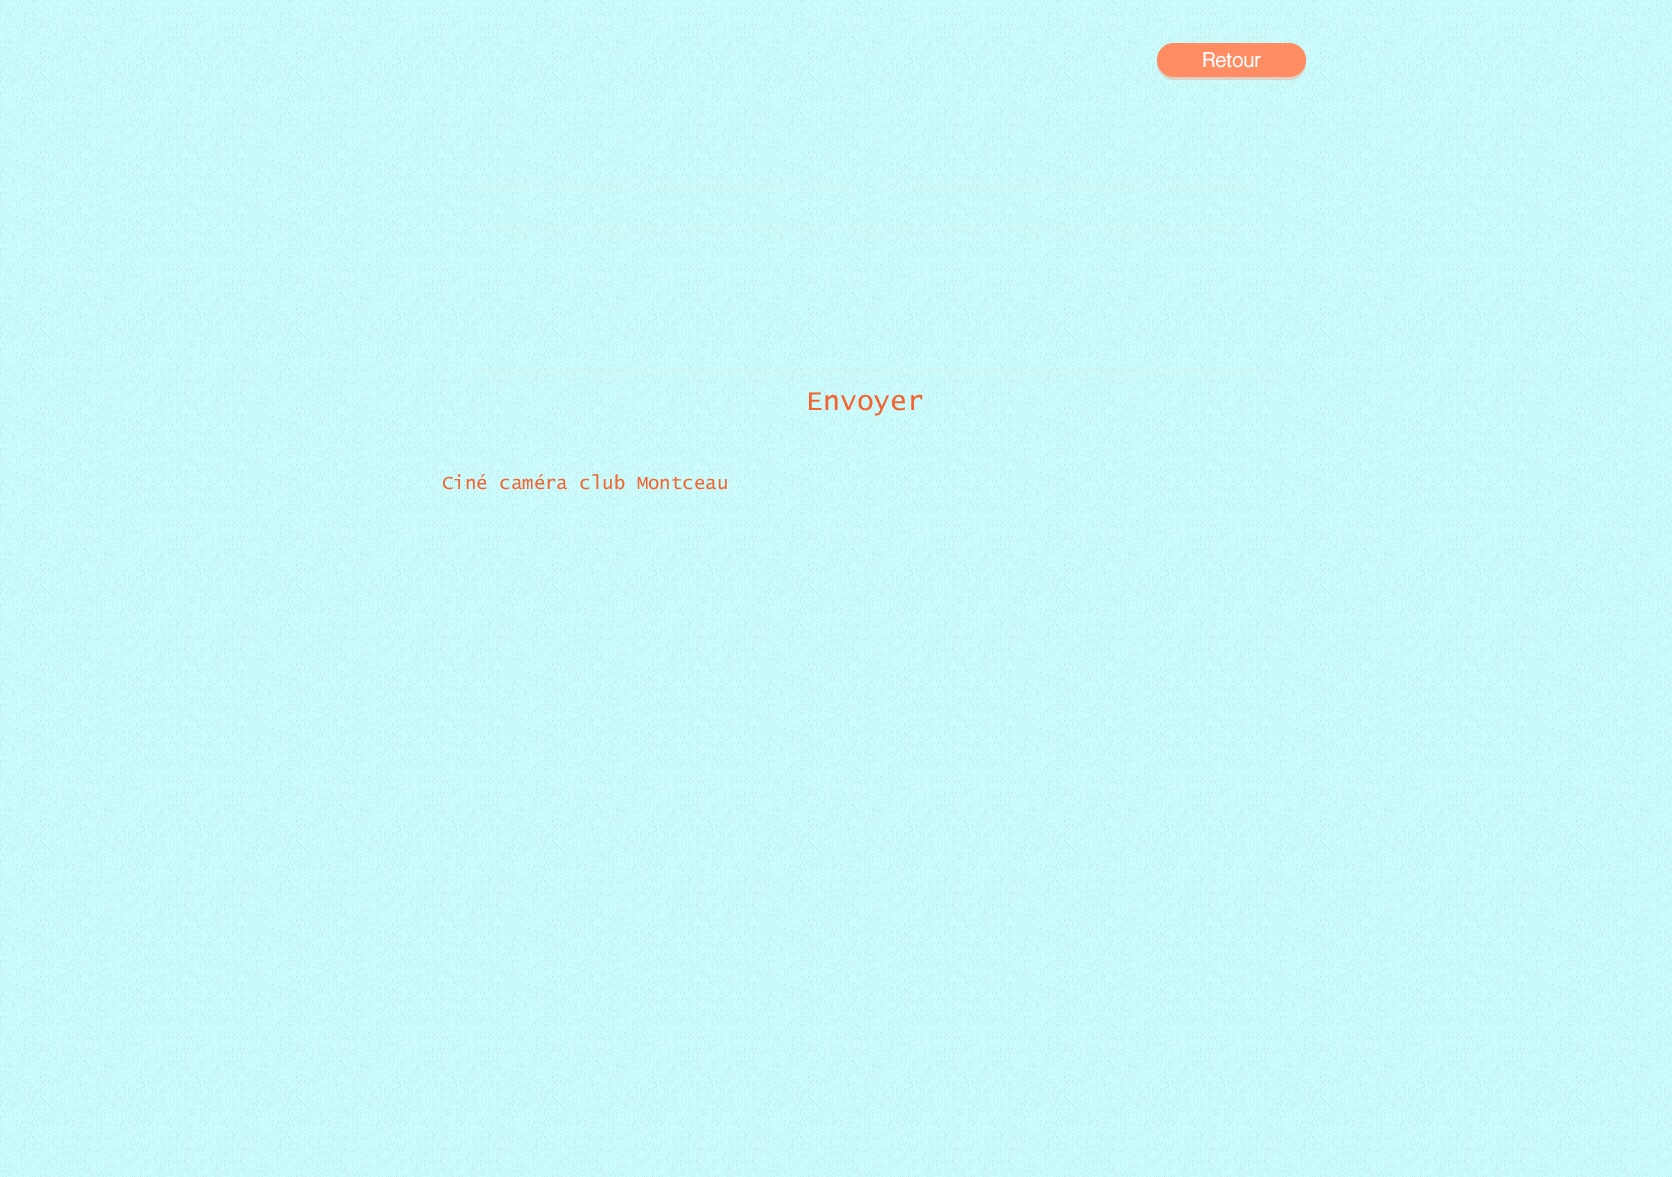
%!PS-Adobe-3.0
%%BoundingBox: 0 0 1672 1177
%%LanguageLevel: 3
%%Pages: 1
%%EndComments
%%BeginProlog
/setalpha { dup .setfillconstantalpha .setstrokeconstantalpha } def
/rrect { 5 dict begin { /r /h /w /y /x } { exch def } forall
  x r add y moveto x w add y 2 copy h add r arct x w add y h add x 1 index r arct
  x y h add x y r arct x y 2 copy exch w add exch r arct closepath end } def
/drawimage { 5 dict begin { /h /w /y /x /name } { exch def } forall
  gsave x y translate w h scale
  w h 8 [w 0 0 h 0 0] name (r) file false 3 colorimage grestore end } def
%%EndProlog
%%BeginSetup
<< /PageSize [1672 1177] /PageUsesTransparency true >> setpagedevice
%%EndSetup
%%Page: 1 1
0 .pushpdf14devicefilter
0 1177 translate 1 -1 scale
4 setmiterlimit
0.812 1 1 setrgbcolor
0 0 1672 1177 rectfill
(images/1.raw) 0 0 1672 1177 drawimage
0.35 setalpha
1 0.549 0.384 setrgbcolor
newpath 1157 61 moveto 1157 63 lineto 1157 72 1165 80 1174 80 curveto 1289 80 lineto 1298 80 1306 72 1306 63 curveto 1306 61 lineto 1305 70 1298 77 1289 77 curveto 1174 77 lineto 1165 77 1158 70 1157 61 curveto closepath fill
1 setalpha
1157 43 149 34 17 rrect fill
0.3 setalpha
0.929 0.933 0.922 setrgbcolor
472 187 379 1 rectfill
881 187 378 1 rectfill
472 229 787 1 rectfill
472 369 787 1 rectfill
/helvetica-Bold [20 0 0 -20 0 0] selectfont
1 setalpha
1 setgray
1202 67 moveto (Retour) show
/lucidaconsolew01-Regular [28 0 0 -28 0 0] selectfont
0.949 0.396 0.196 setrgbcolor
806 410 moveto (Envoyer) show
/lucidaconsolew01-Regular [19 0 0 -19 0 0] selectfont
442 489 moveto (Ciné caméra club Montceau) show
.poppdf14devicefilter showpage
%%EOF
